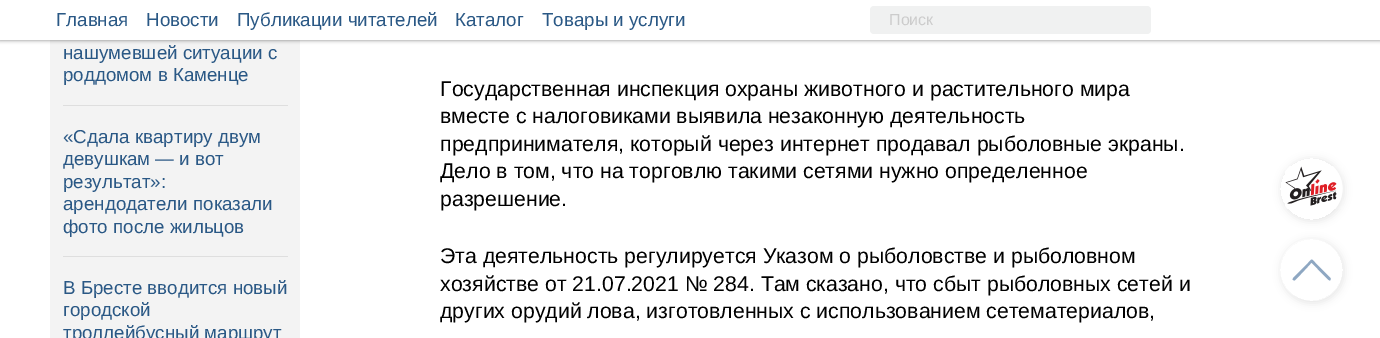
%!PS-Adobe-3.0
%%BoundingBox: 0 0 1380 338
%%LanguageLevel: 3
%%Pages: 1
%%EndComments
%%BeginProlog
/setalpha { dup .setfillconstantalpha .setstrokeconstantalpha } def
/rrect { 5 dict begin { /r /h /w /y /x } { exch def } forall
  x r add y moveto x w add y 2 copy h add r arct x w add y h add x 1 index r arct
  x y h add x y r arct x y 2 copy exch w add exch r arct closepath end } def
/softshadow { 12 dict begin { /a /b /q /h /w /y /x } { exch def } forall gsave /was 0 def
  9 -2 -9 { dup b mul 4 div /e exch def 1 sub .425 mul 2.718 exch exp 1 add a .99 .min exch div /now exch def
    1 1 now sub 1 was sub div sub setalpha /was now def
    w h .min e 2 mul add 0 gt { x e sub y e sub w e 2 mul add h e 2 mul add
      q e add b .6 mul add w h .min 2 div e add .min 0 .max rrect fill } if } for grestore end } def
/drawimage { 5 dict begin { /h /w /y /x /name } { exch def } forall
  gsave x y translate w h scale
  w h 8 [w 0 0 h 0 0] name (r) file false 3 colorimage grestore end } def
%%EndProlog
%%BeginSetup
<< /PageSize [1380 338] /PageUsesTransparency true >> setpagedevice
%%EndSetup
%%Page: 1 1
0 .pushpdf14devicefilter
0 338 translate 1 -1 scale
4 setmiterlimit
1 setgray
0 0 1380 338 rectfill
0.953 setgray
50 40 250 298 rectfill
0 setgray
0 0 1380 40 0 2 0.5 softshadow
1 setgray
0 0 1380 40 rectfill
0.941 0.945 0.945 setrgbcolor
870 6 281 28 4 rrect fill
0.871 setgray
63 105 225 1 rectfill
63 256 225 1 rectfill
gsave
newpath 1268 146 moveto 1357 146 lineto 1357 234 lineto 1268 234 lineto closepath 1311 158 moveto 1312 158 lineto 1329 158 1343 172 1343 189 curveto 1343 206 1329 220 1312 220 curveto 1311 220 lineto 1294 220 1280 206 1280 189 curveto 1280 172 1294 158 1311 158 curveto closepath eoclip newpath
0 setgray
1281 159 63 62 31 4 0.1 softshadow
grestore
(images/1.raw) 1285 166 58 43 drawimage
gsave
newpath 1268 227 moveto 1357 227 lineto 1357 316 lineto 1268 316 lineto closepath 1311 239 moveto 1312 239 lineto 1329 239 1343 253 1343 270 curveto 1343 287 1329 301 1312 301 curveto 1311 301 lineto 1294 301 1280 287 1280 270 curveto 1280 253 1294 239 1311 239 curveto closepath eoclip newpath
0 setgray
1281 240 63 63 31.5 4 0.1 softshadow
grestore
gsave
1280 239 63 62 rectclip
0.6 setalpha
1 setgray
newpath 1311 239 moveto 1273 239 1267 297 1311 301 curveto 1317 302 1324 299 1329 296 curveto 1354 279 1342 239 1312 239 curveto closepath fill
grestore
0.557 0.655 0.761 setrgbcolor
newpath 1330.5 278 moveto 1315.5 263 lineto 1311 258.5 1312.5 258.5 1308 263 curveto 1296 275 lineto 1296 275.5 1291.5 278.5 1293 280 curveto 1294.5 280.5 lineto 1295.5 280 1310 264.5 1311.5 262.5 curveto 1313.5 264.5 1328.5 280.5 1329.5 280.5 curveto 1330.5 280.5 1331 279 1330.5 278 curveto closepath eofill
/LiberationSans-Regular [18.75 0 0 -18.75 0 0] selectfont
0.165 0.345 0.522 setrgbcolor
56 26 moveto (Главная) show
146 26 moveto (Новости) show
237 26 moveto (Публикации читателей) show
455 26 moveto (Каталог) show
542 26 moveto (Товары и услуги) show
/LiberationSans-Regular [16 0 0 -16 0 0] selectfont
0.8 setgray
889 25 moveto (Поиск) show
/LiberationSans-Regular [18.75 0 0 -18.75 0 0] selectfont
0.165 0.345 0.522 setrgbcolor
63 59 moveto (нашумевшей ситуации с) show
63 81 moveto (роддомом в Каменце) show
63 143 moveto («Сдала квартиру двум) show
63 165 moveto (девушкам — и вот) show
63 188 moveto (результат»:) show
63 210 moveto (арендодатели показали) show
63 233 moveto (фото после жильцов) show
63 294 moveto (В Бресте вводится новый) show
63 316 moveto (городской) show
63 339 moveto (троллейбусный маршрут) show
/LiberationSans-Regular [21.25 0 0 -21.25 0 0] selectfont
0 setgray
440 96 moveto (Государственная инспекция охраны животного и растительного мира) show
440 123 moveto (вместе с налоговиками выявила незаконную деятельность) show
440 151 moveto (предпринимателя, который через интернет продавал рыболовные экраны.) show
440 178 moveto (Дело в том, что на торговлю такими сетями нужно определенное) show
440 206 moveto (разрешение.) show
440 263 moveto (Эта деятельность регулируется Указом о рыболовстве и рыболовном) show
440 291 moveto (хозяйстве от 21.07.2021 № 284. Там сказано, что сбыт рыболовных сетей и) show
440 318 moveto (других орудий лова, изготовленных с использованием сетематериалов,) show
.poppdf14devicefilter showpage
%%EOF
